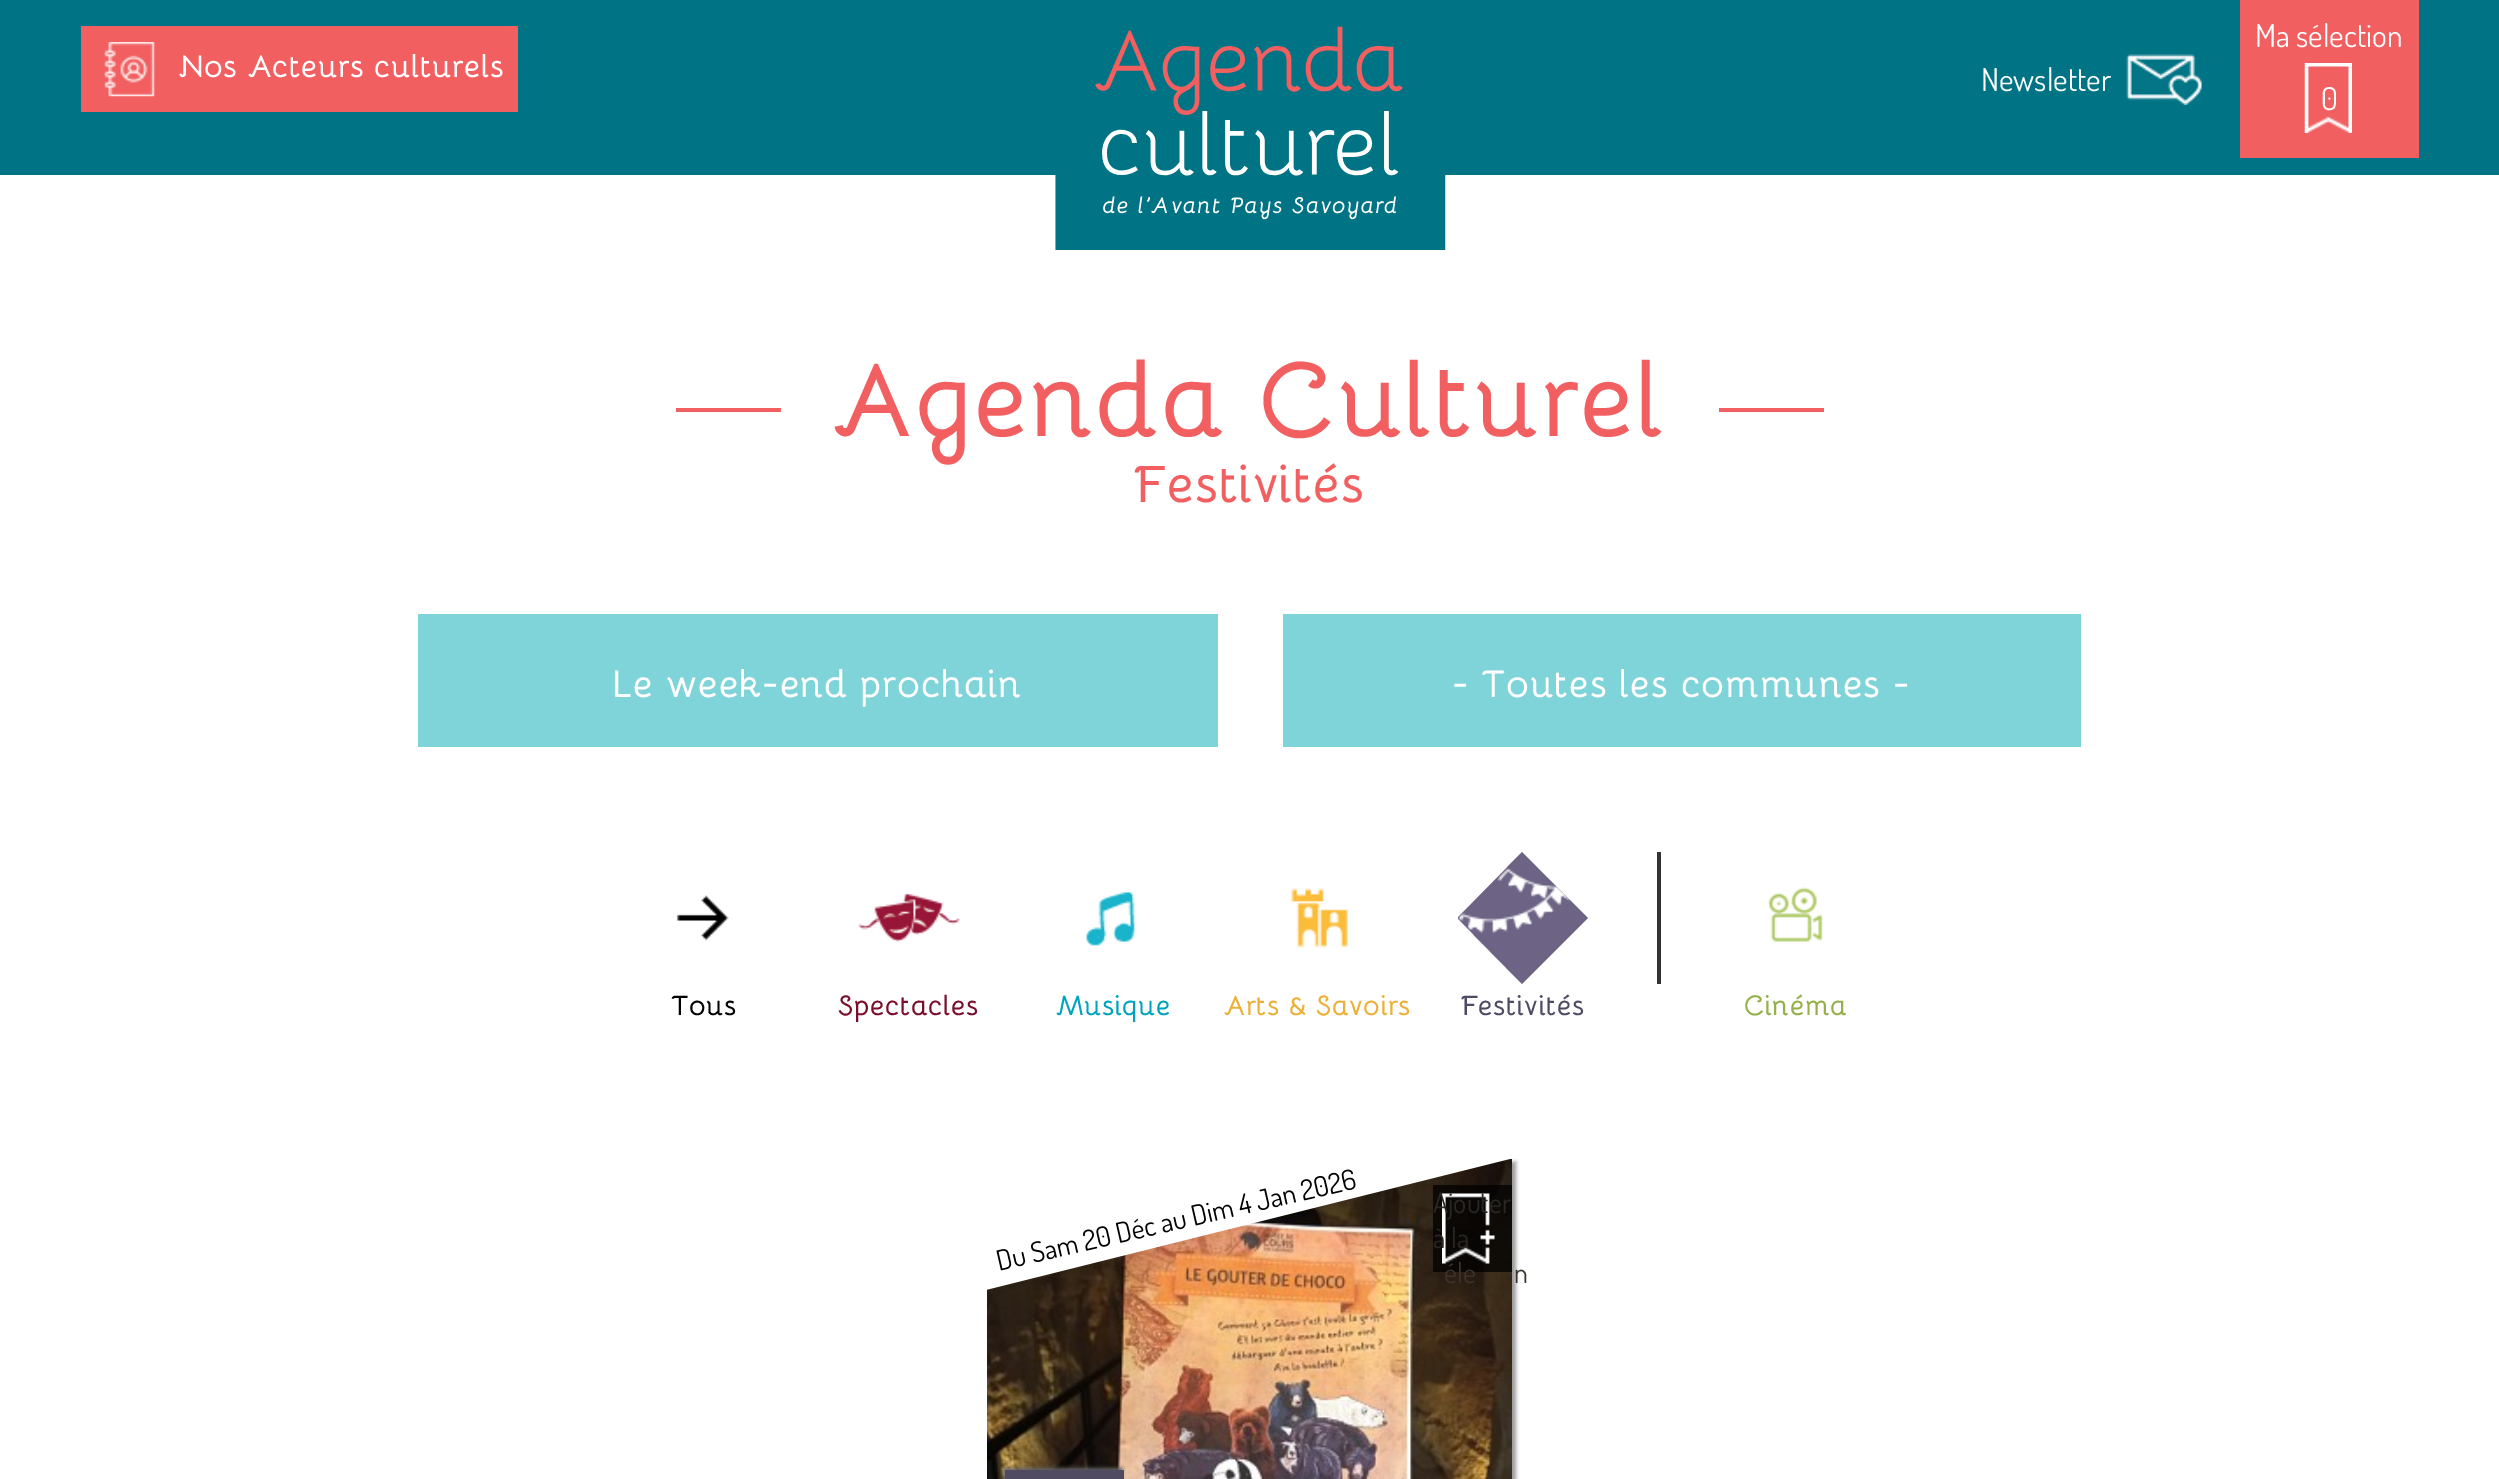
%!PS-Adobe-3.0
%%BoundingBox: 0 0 2499 1479
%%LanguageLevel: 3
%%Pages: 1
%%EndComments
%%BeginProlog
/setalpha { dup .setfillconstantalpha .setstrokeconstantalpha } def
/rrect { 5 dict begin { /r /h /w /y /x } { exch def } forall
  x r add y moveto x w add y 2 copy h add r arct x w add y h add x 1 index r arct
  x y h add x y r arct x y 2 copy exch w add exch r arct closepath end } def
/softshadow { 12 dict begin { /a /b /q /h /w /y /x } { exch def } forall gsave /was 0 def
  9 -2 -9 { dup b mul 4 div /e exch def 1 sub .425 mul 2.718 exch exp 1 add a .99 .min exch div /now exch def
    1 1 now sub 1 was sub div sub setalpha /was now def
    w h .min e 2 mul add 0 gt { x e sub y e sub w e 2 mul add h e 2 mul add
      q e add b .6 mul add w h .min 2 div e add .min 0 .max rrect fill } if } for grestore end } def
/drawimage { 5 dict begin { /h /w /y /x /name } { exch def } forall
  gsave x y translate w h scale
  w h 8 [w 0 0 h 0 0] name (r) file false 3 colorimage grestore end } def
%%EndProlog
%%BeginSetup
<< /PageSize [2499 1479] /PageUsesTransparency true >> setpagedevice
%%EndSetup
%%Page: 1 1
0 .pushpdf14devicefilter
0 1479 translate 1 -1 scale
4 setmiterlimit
1 setgray
0 0 2499 1479 rectfill
0 0.455 0.522 setrgbcolor
0 0 2499 175 rectfill
0.945 0.373 0.376 setrgbcolor
81 26 437 86 rectfill
(images/1.raw) 104 42 51 55 drawimage
(images/2.raw) 1055 26 391 224 drawimage
(images/3.raw) 2126 54 76 51 drawimage
2240 0 179 158 rectfill
(images/4.raw) 2304 63 48 70 drawimage
676 408 105 4 rectfill
1719 408 105 4 rectfill
0.498 0.831 0.851 setrgbcolor
418 614 800 133 rectfill
1283 614 798 133 rectfill
0.2 setgray
1657 852 4 132 rectfill
(images/5.raw) 676 895 53 46 drawimage
(images/6.raw) 857 893 103 49 drawimage
(images/7.raw) 1086 892 49 54 drawimage
(images/8.raw) 1290 887 59 62 drawimage
0.427 0.388 0.522 setrgbcolor
newpath 1522 852 moveto 1588 918 lineto 1522 984 lineto 1458 919 lineto 1458 917 lineto closepath fill
(images/9.raw) 1458 867 112 67 drawimage
(images/10.raw) 1768 887 55 55 drawimage
gsave
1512 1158 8 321 rectclip
0.6 setgray
991 1162 525 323 0 2 1 softshadow
grestore
/Bellota-Bold [31.5 0 0 -31.5 0 0] selectfont
1 setgray
179 77 moveto (Nos Acteurs culturels) show
/Dosis-Regular [31.5 0 0 -31.5 0 0] selectfont
1981 91 moveto (Newsletter) show
2255 47 moveto (Ma sélection) show
2321 110 moveto (0) show
/Bellota-Bold [105 0 0 -105 0 0] selectfont
0.945 0.373 0.376 setrgbcolor
833 436 moveto (Agenda Culturel) show
/Bellota-Bold [52.5 0 0 -52.5 0 0] selectfont
1134 502 moveto (Festivités) show
/Bellota-Bold [38.5 0 0 -38.5 0 0] selectfont
1 setgray
613 697 moveto (Le week-end prochain) show
1452 697 moveto (- Toutes les communes -) show
/Bellota-Bold [28 0 0 -28 0 0] selectfont
0 setgray
671 1015 moveto (Tous) show
0.478 0.059 0.169 setrgbcolor
838 1015 moveto (Spectacles) show
0 0.639 0.745 setrgbcolor
1056 1015 moveto (Musique) show
0.922 0.69 0.208 setrgbcolor
1224 1015 moveto (Arts & Savoirs) show
0.318 0.29 0.388 setrgbcolor
1461 1015 moveto (Festivités) show
0.576 0.69 0.29 setrgbcolor
1744 1015 moveto (Cinéma) show
/Dosis-Regular [28 0 0 -28 0 0] selectfont
0 setgray
gsave 999 1271 translate -13 rotate 0 0 moveto (Du Sam 20 Déc au Dim 4 Jan 2026) show grestore
(images/11.raw) 987 1158 525 321 drawimage
0.4 setgray
1003 1468 119 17 0 2 1 softshadow
0.318 0.29 0.388 setrgbcolor
1005 1470 119 9 rectfill
0.75 setalpha
0 setgray
1433 1185 79 87 rectfill
1 setalpha
(images/12.raw) 1442 1193 53 71 drawimage
0.161 0.153 0.141 setrgbcolor
1433 1213 moveto (Ajouter) show
1433 1248 moveto (à la) show
0.235 0.2 0.169 setrgbcolor
1444 1283 moveto (éle) show
1514 1283 moveto (n) show
.poppdf14devicefilter showpage
%%EOF
